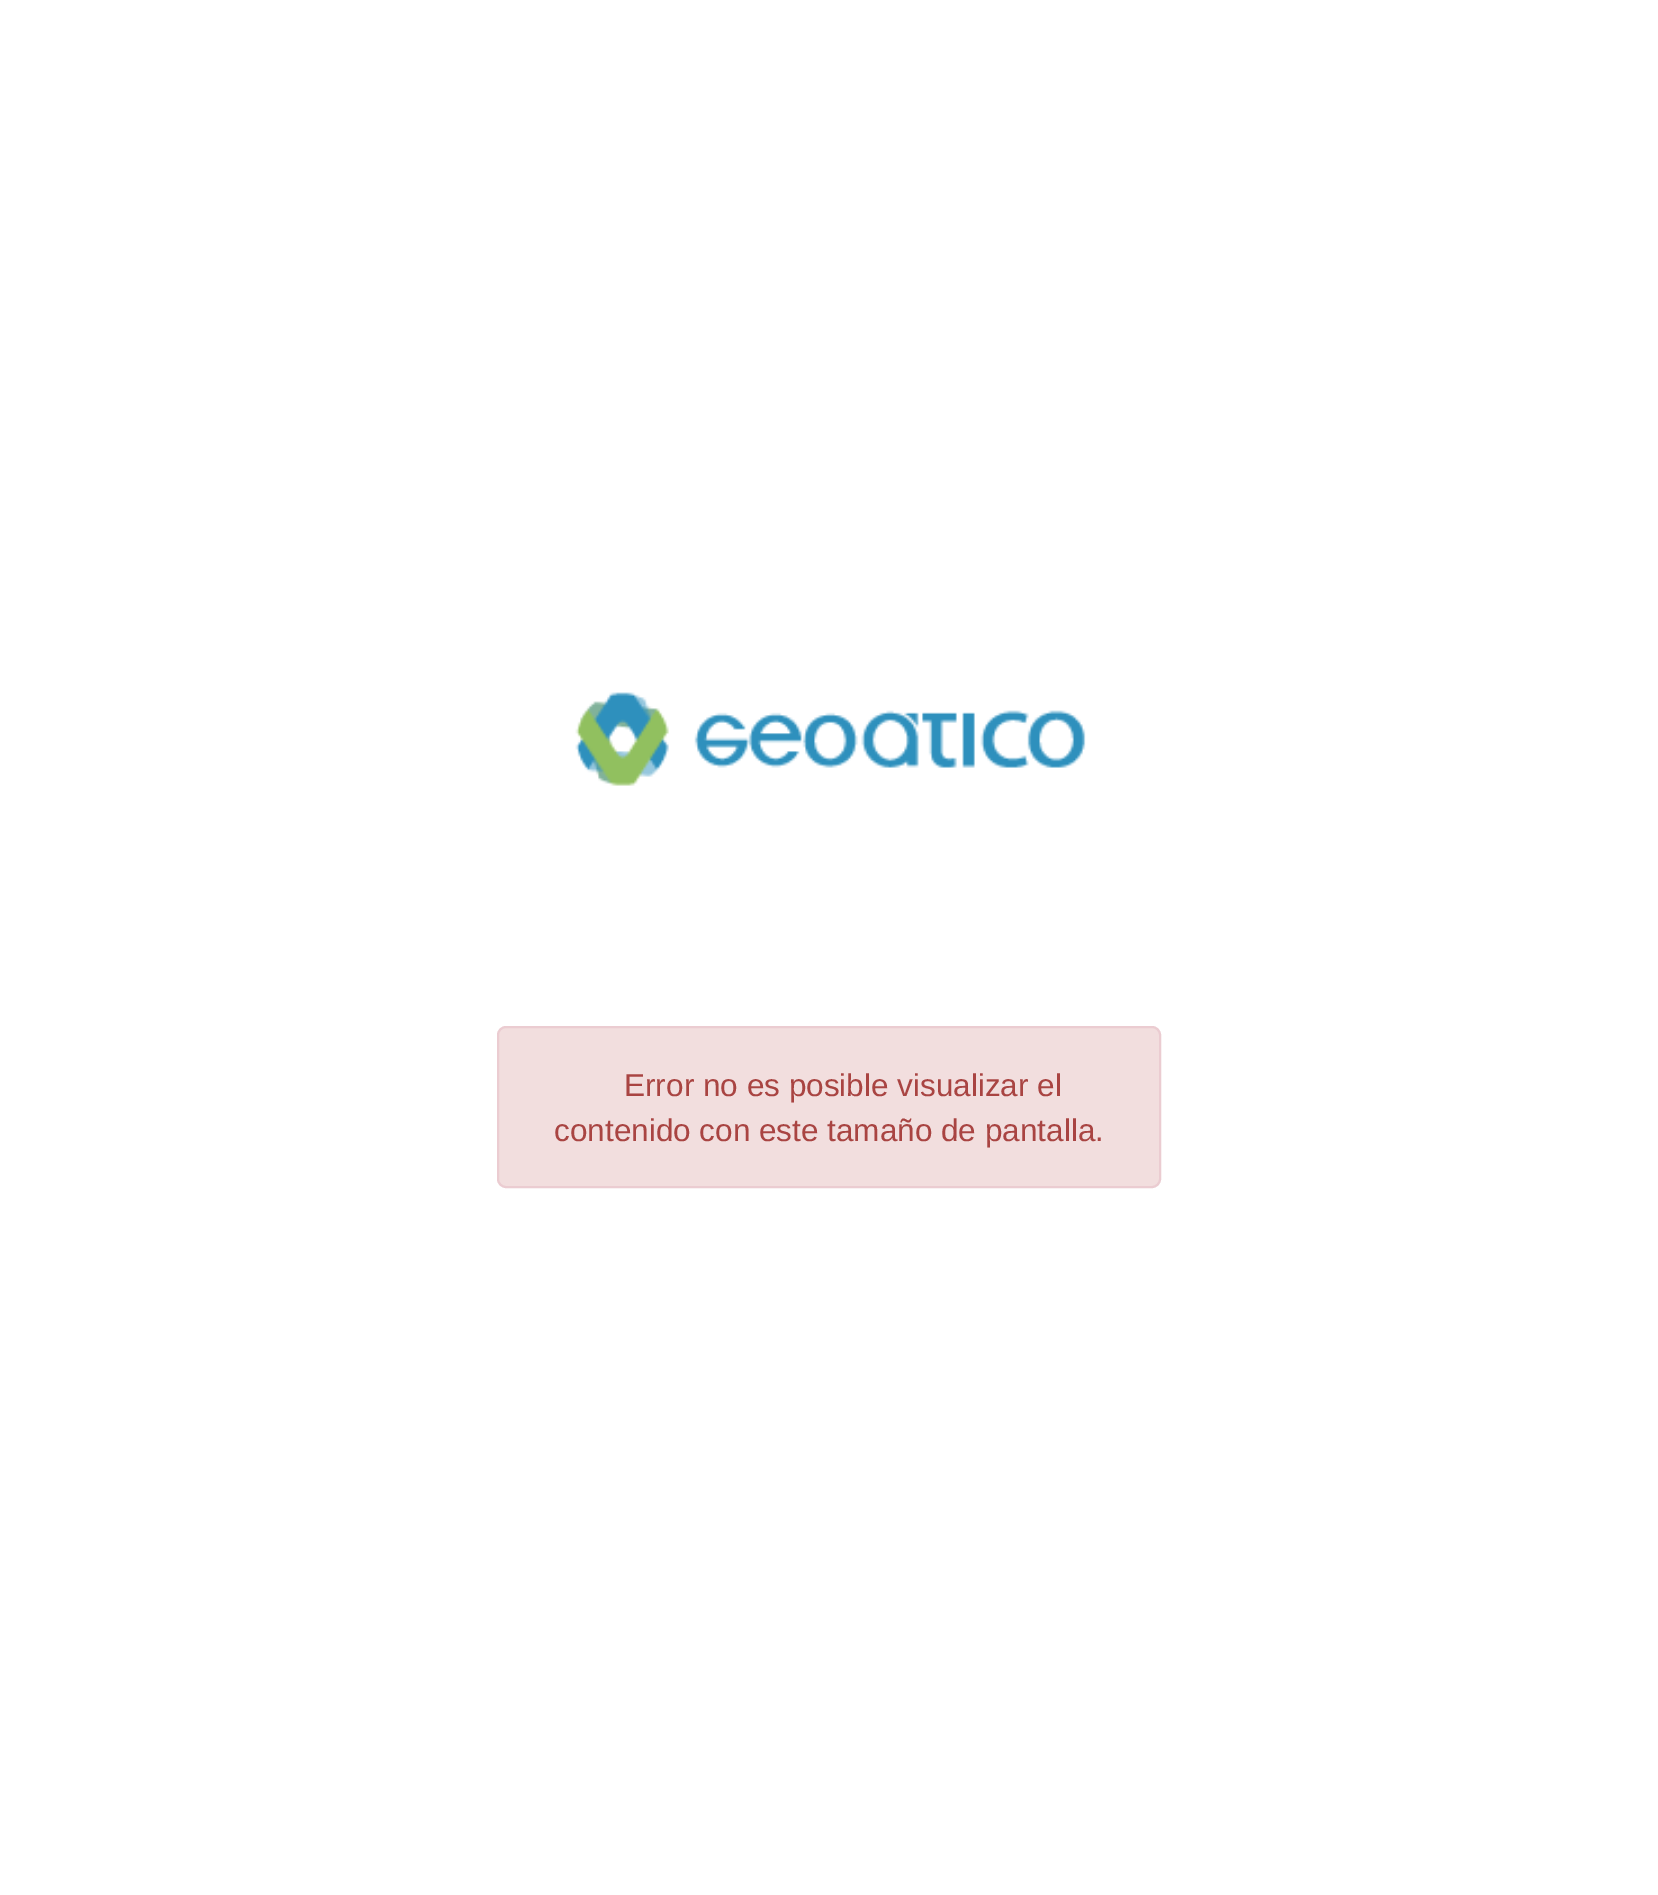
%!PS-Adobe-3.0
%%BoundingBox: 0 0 1658 1895
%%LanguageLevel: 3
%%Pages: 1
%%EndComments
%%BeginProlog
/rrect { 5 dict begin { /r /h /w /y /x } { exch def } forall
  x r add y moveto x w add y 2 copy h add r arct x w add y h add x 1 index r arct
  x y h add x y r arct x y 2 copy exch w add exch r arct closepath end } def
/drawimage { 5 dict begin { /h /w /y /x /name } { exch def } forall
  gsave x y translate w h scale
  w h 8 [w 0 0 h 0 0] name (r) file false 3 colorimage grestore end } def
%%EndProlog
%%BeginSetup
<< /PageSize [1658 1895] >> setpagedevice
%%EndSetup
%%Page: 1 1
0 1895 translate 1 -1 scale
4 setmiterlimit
1 setgray
0 0 1658 1895 rectfill
(images/1.raw) 575 692 511 94 drawimage
0.949 0.871 0.871 setrgbcolor
498 1027 662 160 8 rrect gsave fill grestore
0.922 0.8 0.82 setrgbcolor
2 setlinewidth
stroke
/LiberationSans-Regular [31.5 0 0 -31.5 0 0] selectfont
0.663 0.267 0.259 setrgbcolor
624 1096 moveto (Error no es posible visualizar el) show
554 1141 moveto (contenido con este tamaño de pantalla.) show
showpage
%%EOF
